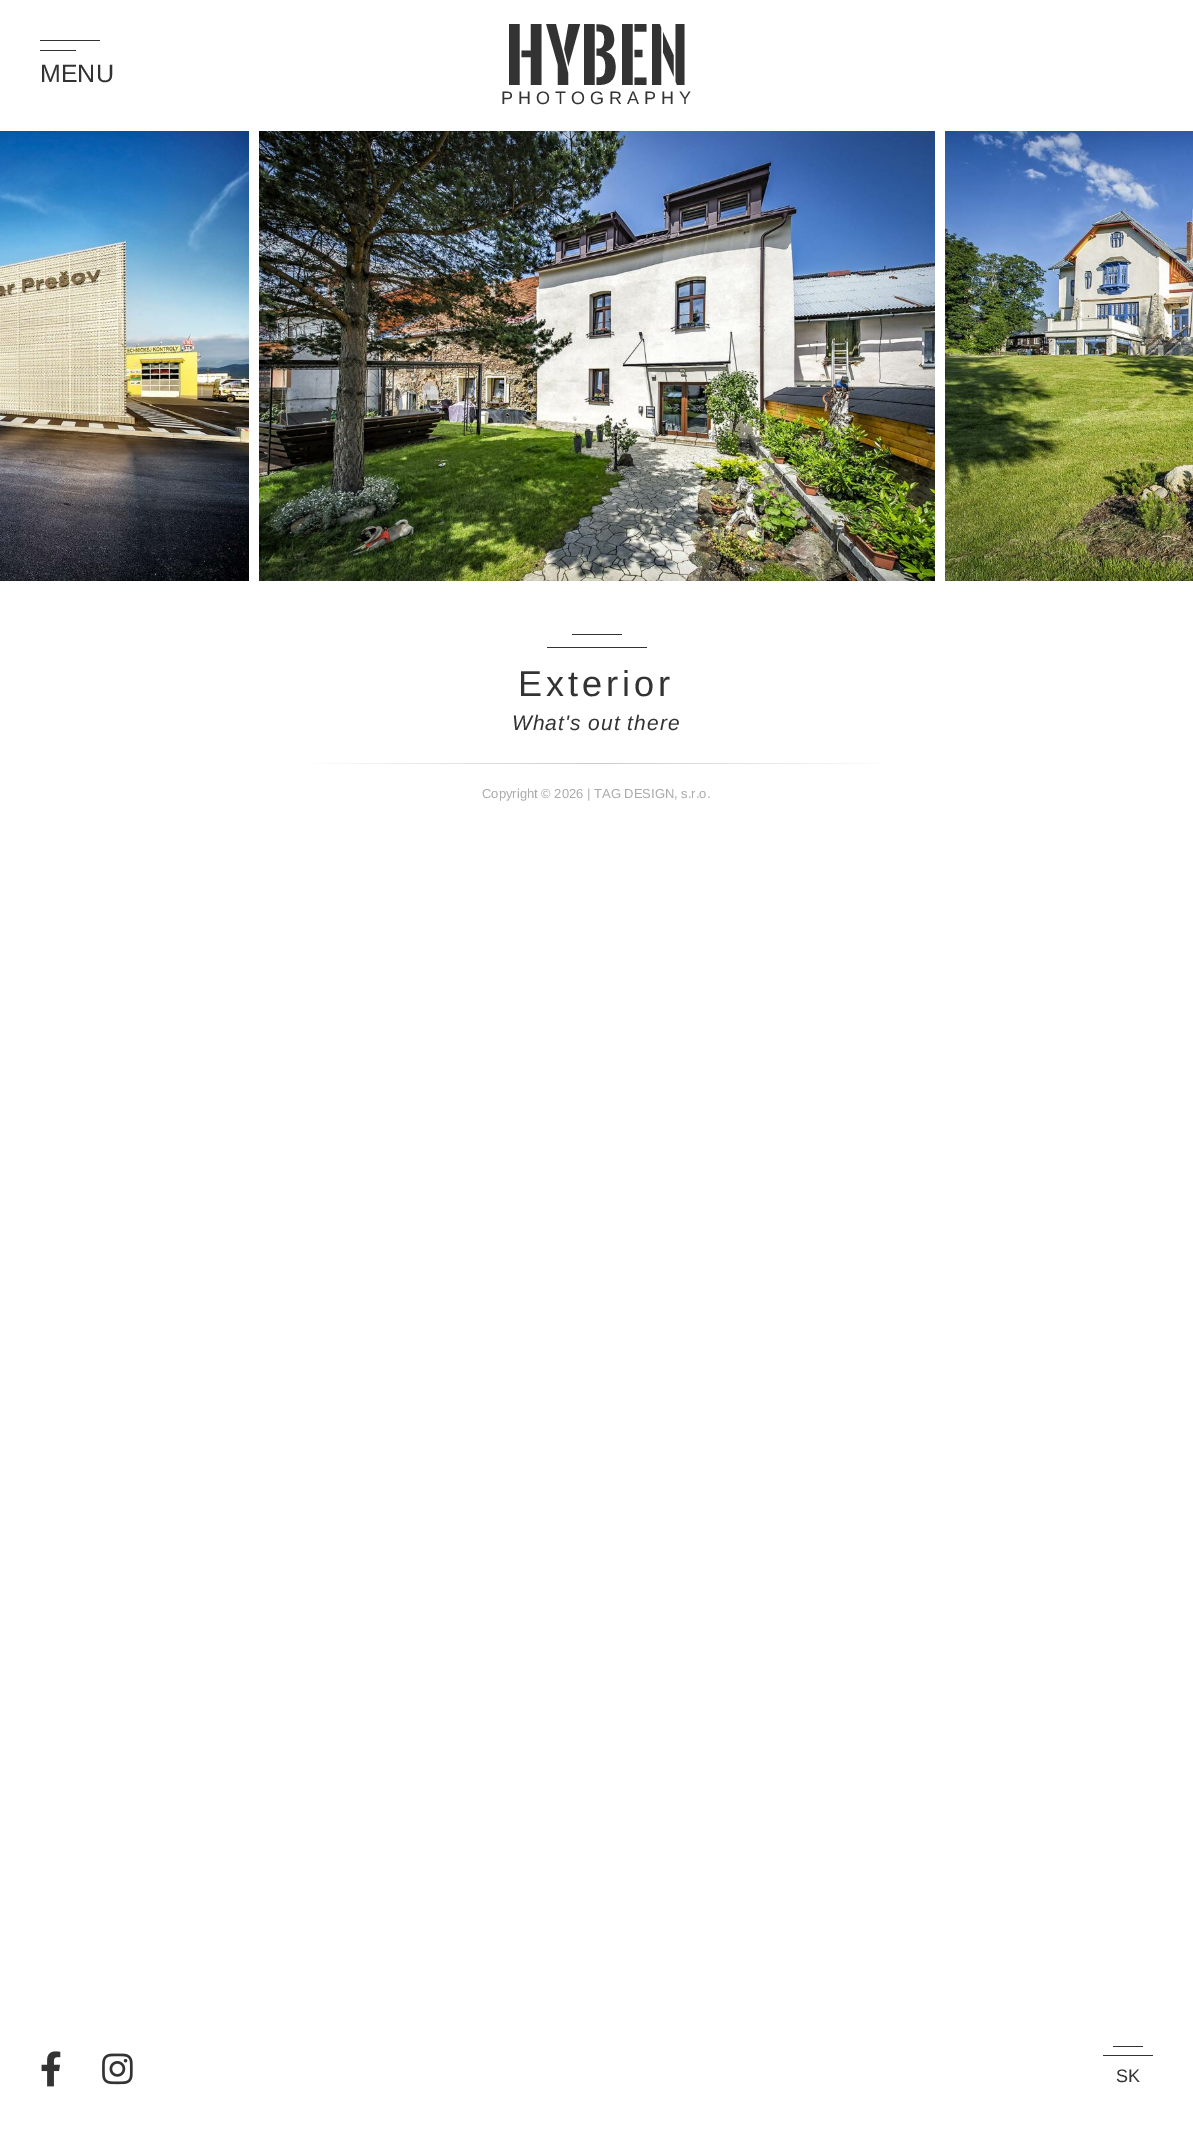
%!PS-Adobe-3.0
%%BoundingBox: 0 0 1193 2146
%%LanguageLevel: 3
%%Pages: 1
%%EndComments
%%BeginProlog
/drawimage { 5 dict begin { /h /w /y /x /name } { exch def } forall
  gsave x y translate w h scale
  w h 8 [w 0 0 h 0 0] name (r) file false 3 colorimage grestore end } def
%%EndProlog
%%BeginSetup
<< /PageSize [1193 2146] >> setpagedevice
%%EndSetup
%%Page: 1 1
0 2146 translate 1 -1 scale
4 setmiterlimit
1 setgray
0 0 1193 2146 rectfill
0.2 setgray
40 40 60 1 rectfill
40 50 36 1 rectfill
(images/1.raw) 0 131 249 450 drawimage
(images/2.raw) 259 131 676 450 drawimage
(images/3.raw) 945 131 248 450 drawimage
572 634 50 1 rectfill
547 647 100 1 rectfill
gsave newpath 313 763 moveto 880 763 lineto 880 764 lineto 313 764 lineto closepath clip newpath
<< /ShadingType 2 /ColorSpace /DeviceRGB /Coords [298 764 895 764] /Extend [true true] /Function << /FunctionType 3 /Domain [0 1] /Functions [<< /FunctionType 2 /Domain [0 1] /C0 [1 1 1] /C1 [0.8 0.8 0.8] /N 1 >> << /FunctionType 2 /Domain [0 1] /C0 [0.8 0.8 0.8] /C1 [1 1 1] /N 1 >>] /Bounds [0.5] /Encode [0 1 0 1] >> >> shfill grestore
(images/4.raw) 41 2051 20 36 drawimage
(images/5.raw) 102 2053 31 32 drawimage
1113 2046 30 1 rectfill
1103 2055 50 1 rectfill
/LiberationSans-Regular [25 0 0 -25 0 0] selectfont
40 82 moveto (MENU) show
/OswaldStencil-Bold [70 0 0 -70 0 0] selectfont
505 85 moveto (HYBEN) show
/LiberationSans-Regular [18 0 0 -18 0 0] selectfont
501 104 moveto 5 0 (PHOTOGRAPHY) ashow
/LiberationSans-Regular [36 0 0 -36 0 0] selectfont
518 696 moveto 4 0 (Exterior) ashow
/LiberationSans-Italic [21 0 0 -21 0 0] selectfont
512 730 moveto 1 0 (What's out there) ashow
/LiberationSans-Regular [13 0 0 -13 0 0] selectfont
0.667 setgray
482 798 moveto (Copyright © 2026 | TAG DESIGN, s.r.o.) show
/LiberationSans-Regular [18 0 0 -18 0 0] selectfont
0.2 setgray
1116 2082 moveto (SK) show
showpage
%%EOF
